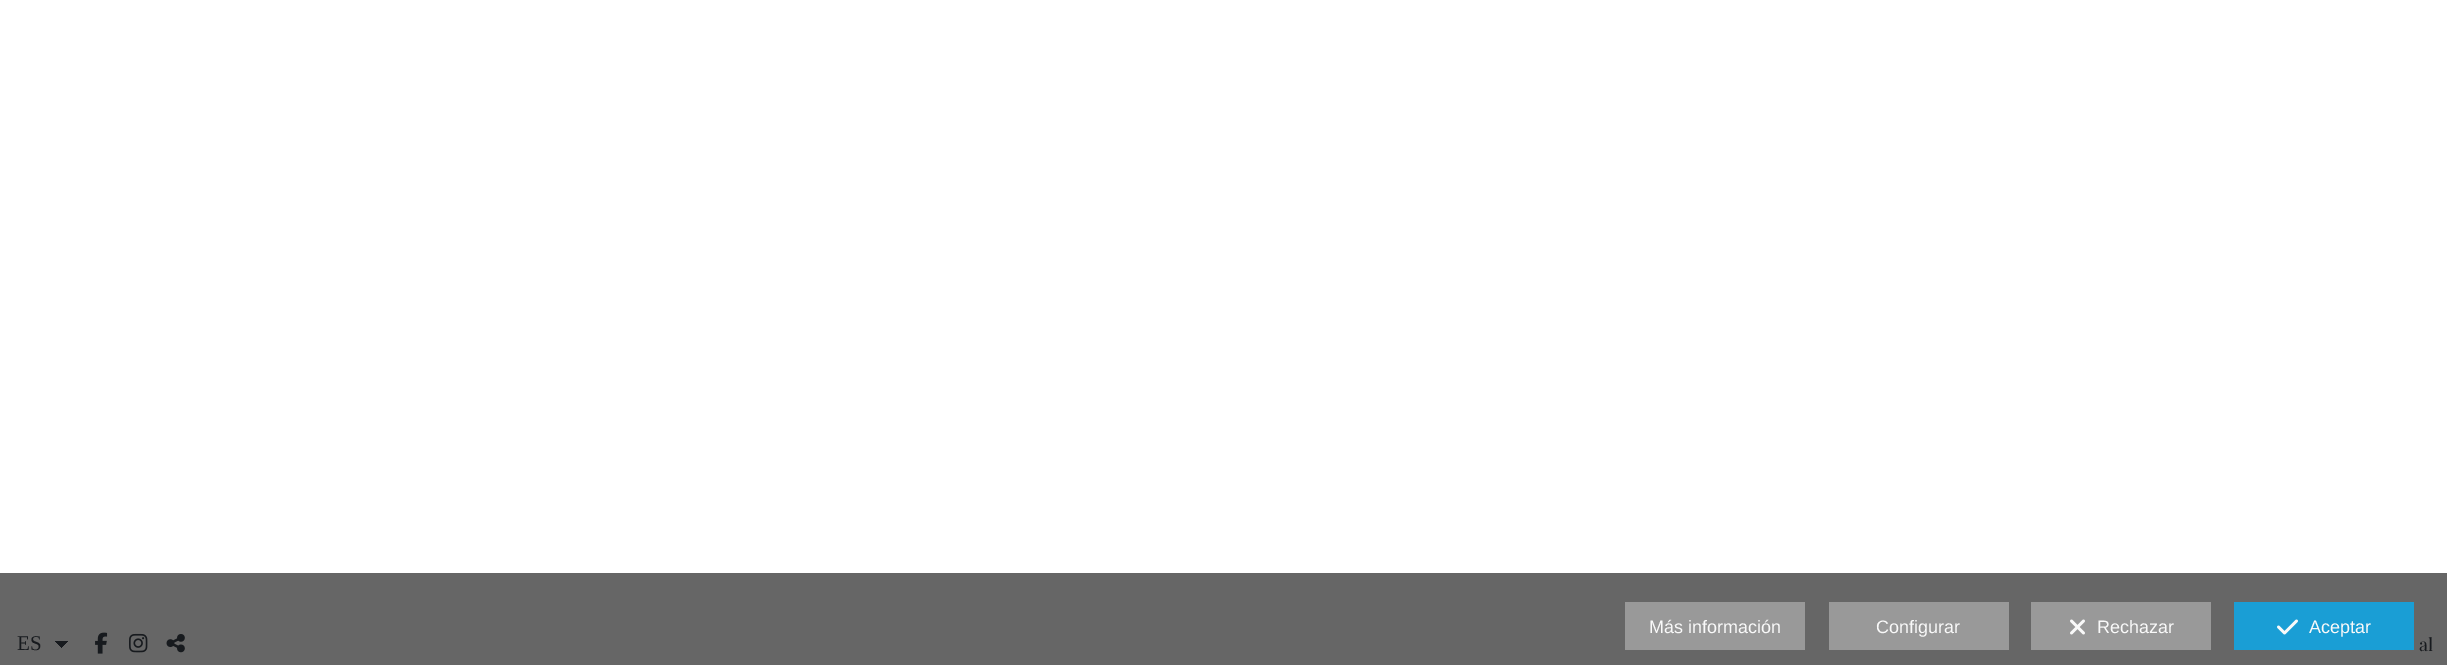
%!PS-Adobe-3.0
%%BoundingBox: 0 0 2447 665
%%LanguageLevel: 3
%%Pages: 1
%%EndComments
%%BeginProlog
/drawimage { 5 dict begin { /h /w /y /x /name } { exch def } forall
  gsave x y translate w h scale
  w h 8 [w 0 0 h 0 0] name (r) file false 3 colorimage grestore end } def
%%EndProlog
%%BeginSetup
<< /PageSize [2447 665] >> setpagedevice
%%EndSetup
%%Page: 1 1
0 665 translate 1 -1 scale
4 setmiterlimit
1 setgray
0 0 2447 665 rectfill
0.4 setgray
0 573 2447 92 rectfill
0.6 setgray
1625 602 180 48 rectfill
1829 602 180 48 rectfill
2031 602 180 48 rectfill
(images/1.raw) 2070 619 15 16 drawimage
0.102 0.62 0.835 setrgbcolor
2234 602 180 48 rectfill
(images/2.raw) 2277 619 21 16 drawimage
gsave newpath 62 641 moveto 69 641 lineto 69 648 lineto 62 648 lineto closepath clip newpath
<< /ShadingType 2 /ColorSpace /DeviceRGB /Coords [62 641 69 648] /Extend [true true] /Function << /FunctionType 3 /Domain [0 1] /Functions [<< /FunctionType 2 /Domain [0 1] /C0 [0.09 0.102 0.118] /C1 [0.09 0.102 0.118] /N 1 >> << /FunctionType 2 /Domain [0 1] /C0 [0.4 0.4 0.4] /C1 [0.4 0.4 0.4] /N 1 >>] /Bounds [0.5] /Encode [0 1 0 1] >> >> shfill grestore
gsave newpath 54 641 moveto 62 641 lineto 62 648 lineto 54 648 lineto closepath clip newpath
<< /ShadingType 2 /ColorSpace /DeviceRGB /Coords [54 648 62 641] /Extend [true true] /Function << /FunctionType 3 /Domain [0 1] /Functions [<< /FunctionType 2 /Domain [0 1] /C0 [0.4 0.4 0.4] /C1 [0.4 0.4 0.4] /N 1 >> << /FunctionType 2 /Domain [0 1] /C0 [0.09 0.102 0.118] /C1 [0.09 0.102 0.118] /N 1 >>] /Bounds [0.5] /Encode [0 1 0 1] >> >> shfill grestore
(images/3.raw) 95 632 13 22 drawimage
(images/4.raw) 129 633 19 20 drawimage
(images/5.raw) 166 634 19 19 drawimage
/LiberationSans-Regular [18 0 0 -18 0 0] selectfont
0.976 setgray
1649 633 moveto (Más información) show
1876 633 moveto (Configurar) show
2097 633 moveto (Rechazar) show
2309 633 moveto (Aceptar) show
/LiberationSerif-Regular [21 0 0 -21 0 0] selectfont
0.09 0.102 0.118 setrgbcolor
17 650 moveto (ES) show
/PlayfairDisplay-Regular [18 0 0 -18 0 0] selectfont
2419 651 moveto (al) show
showpage
%%EOF
